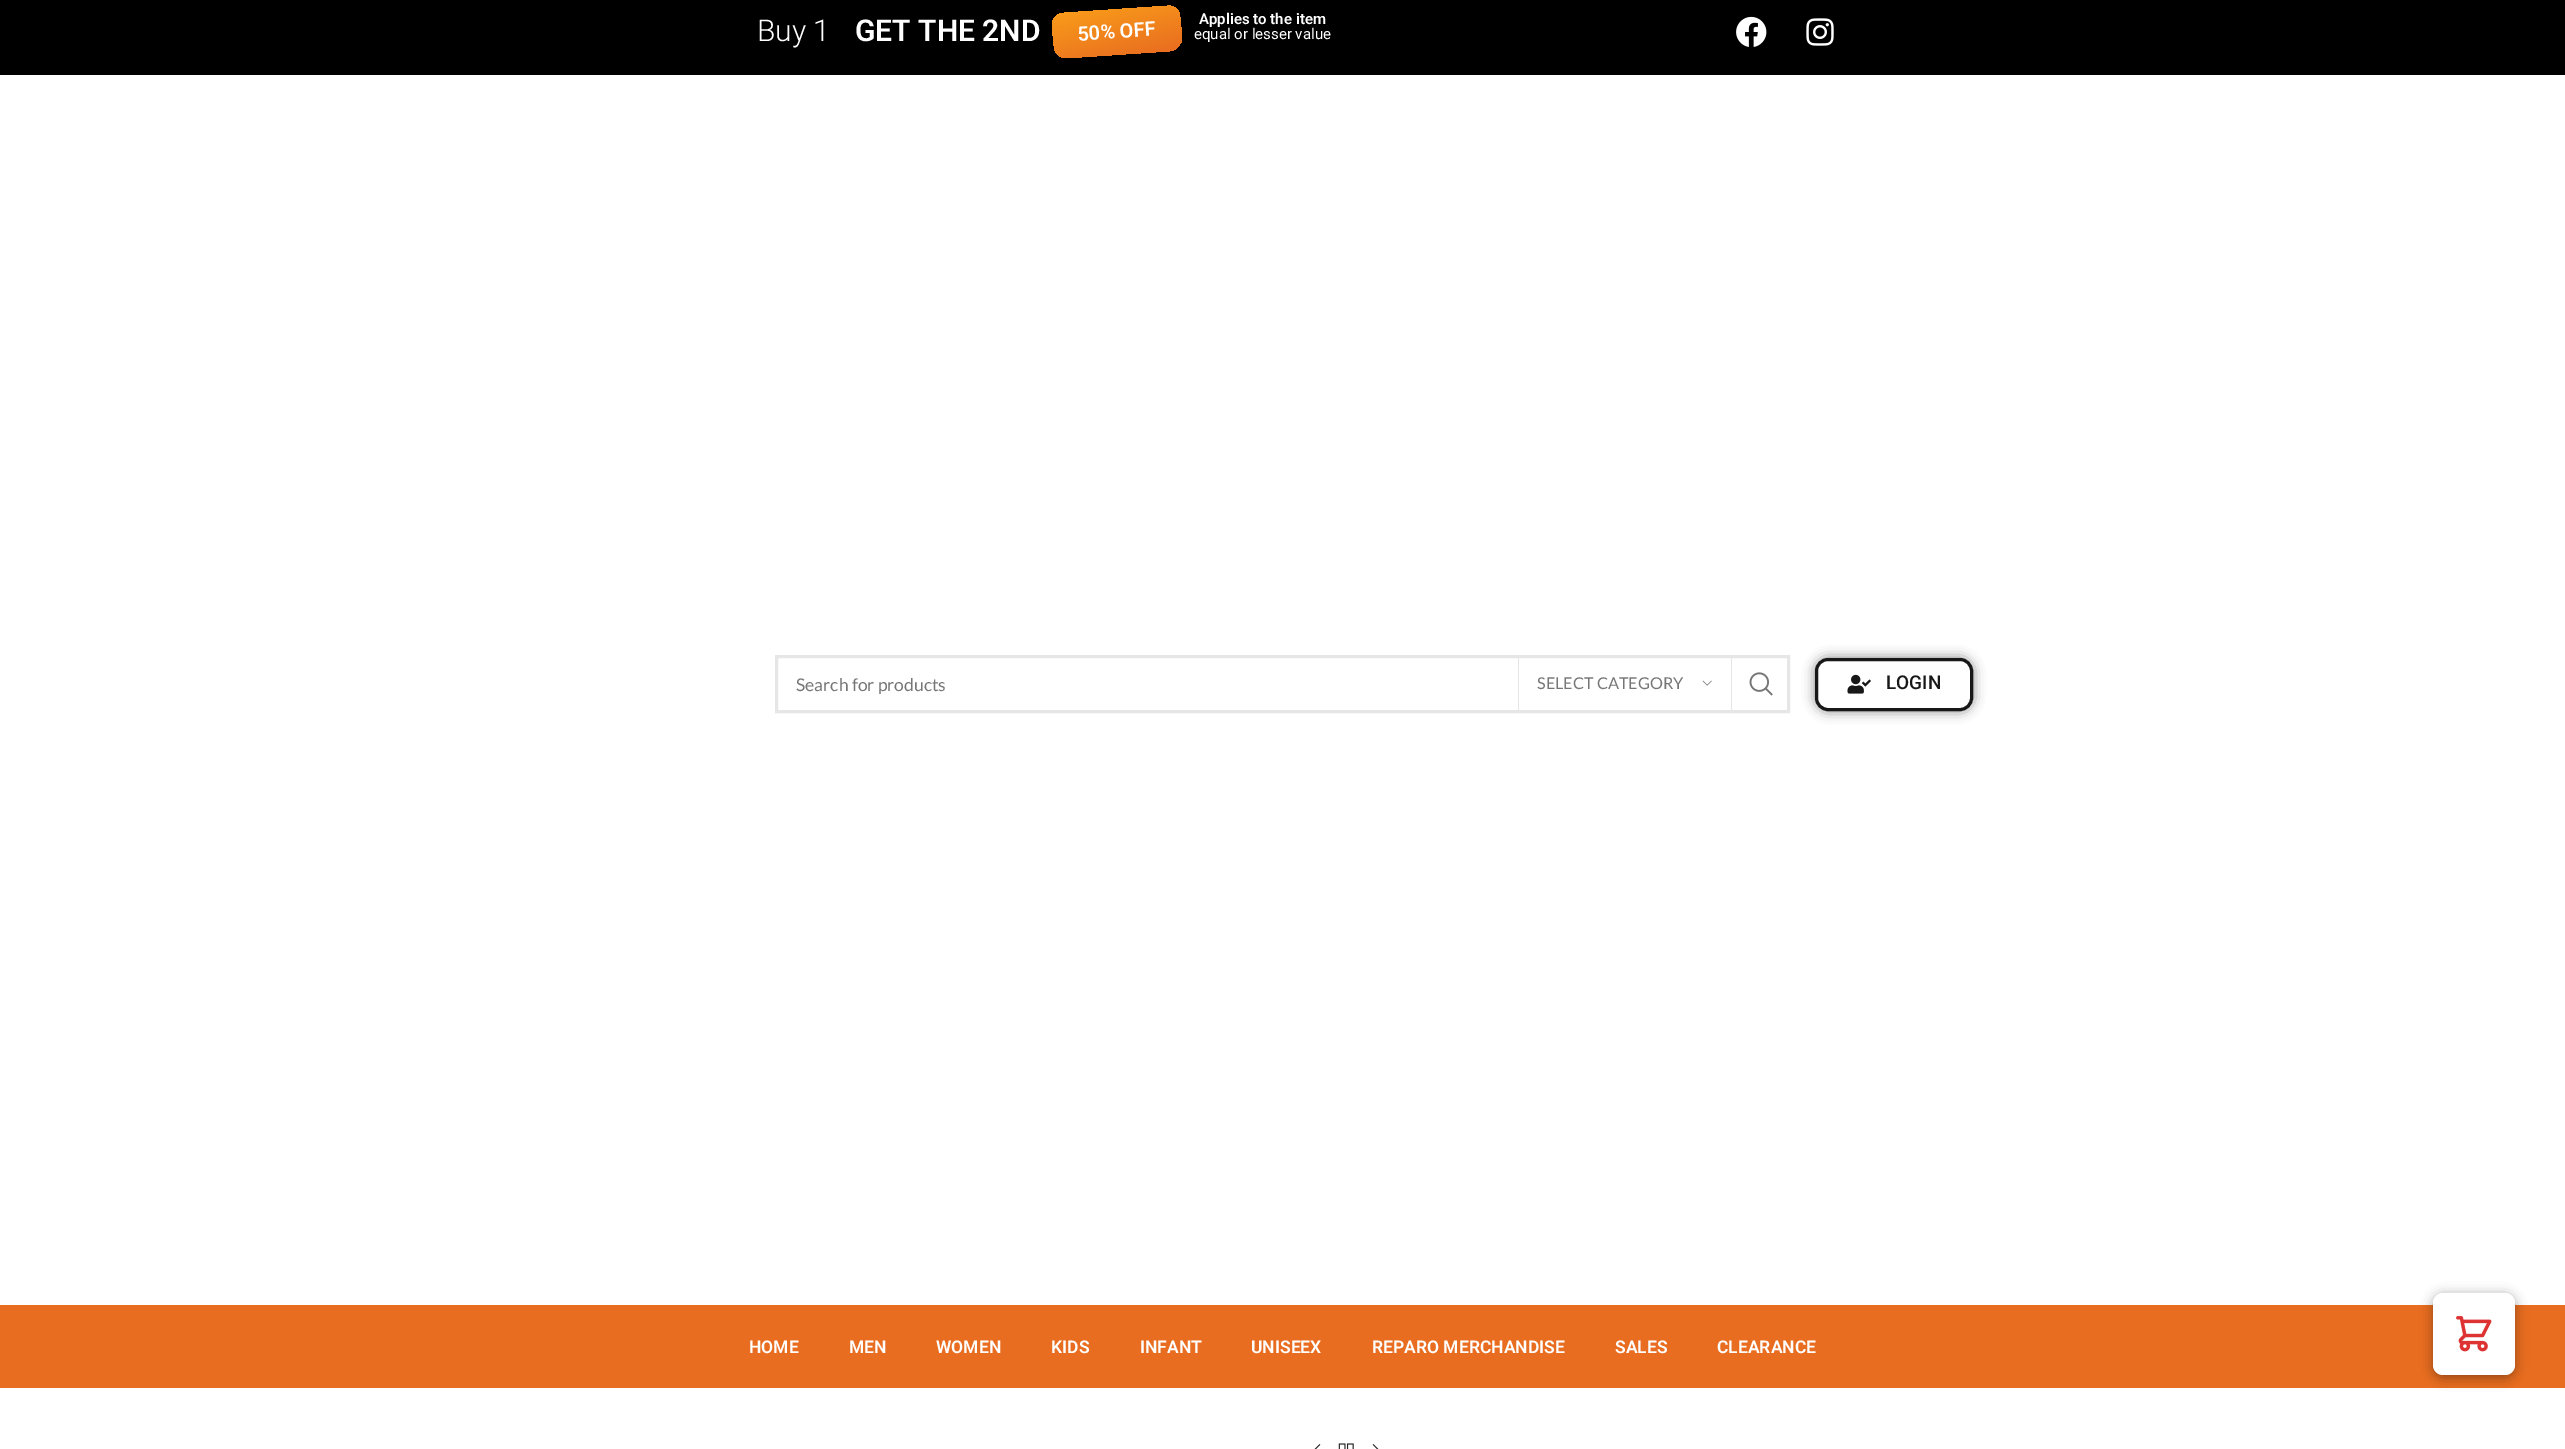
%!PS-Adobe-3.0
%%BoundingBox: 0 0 2565 1449
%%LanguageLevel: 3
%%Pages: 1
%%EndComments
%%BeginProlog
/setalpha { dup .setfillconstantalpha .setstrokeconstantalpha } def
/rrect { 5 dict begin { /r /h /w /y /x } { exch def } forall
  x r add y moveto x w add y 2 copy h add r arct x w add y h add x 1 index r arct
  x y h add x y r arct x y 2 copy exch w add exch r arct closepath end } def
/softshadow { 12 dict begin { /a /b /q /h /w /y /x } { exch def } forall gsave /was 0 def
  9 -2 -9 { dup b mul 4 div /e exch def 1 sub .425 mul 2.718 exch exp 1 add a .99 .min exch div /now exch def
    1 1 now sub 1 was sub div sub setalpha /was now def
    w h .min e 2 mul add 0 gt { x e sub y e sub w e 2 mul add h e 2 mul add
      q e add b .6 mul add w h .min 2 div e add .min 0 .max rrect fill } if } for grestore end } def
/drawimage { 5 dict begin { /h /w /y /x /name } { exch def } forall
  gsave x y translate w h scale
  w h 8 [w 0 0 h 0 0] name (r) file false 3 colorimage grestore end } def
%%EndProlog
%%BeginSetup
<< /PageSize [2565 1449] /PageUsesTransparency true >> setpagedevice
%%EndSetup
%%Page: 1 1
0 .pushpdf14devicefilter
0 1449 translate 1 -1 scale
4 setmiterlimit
1 setgray
0 0 2565 1449 rectfill
0 setgray
0 0 2565 75 rectfill
gsave newpath 1064 13 moveto 1167 6 lineto 1174 5 1180 10 1180 17 curveto 1182 37 lineto 1182 44 1177 50 1170 51 curveto 1067 58 lineto 1060 58 1054 53 1054 46 curveto 1052 26 lineto 1052 19 1057 13 1064 13 curveto closepath clip newpath
<< /ShadingType 2 /ColorSpace /DeviceRGB /Coords [1109 -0.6 1125 64] /Extend [true true] /Function << /FunctionType 2 /Domain [0 1] /C0 [0.976 0.612 0.102] /C1 [0.914 0.427 0.125] /N 1 >> >> shfill grestore
(images/1.raw) 1736 16 31 31 drawimage
(images/2.raw) 1806 18 28 28 drawimage
0.902 setgray
3 setlinewidth
776.5 656.5 1012 55 rectstroke
1731 658 1 52 rectfill
1518 658 1 52 rectfill
(images/3.raw) 1702 680 10 6 drawimage
(images/4.raw) 1749 672 24 24 drawimage
0 setgray
1815 658 158 53 13 6 0.5 softshadow
1 setgray
1816.5 659.5 155 50 11.5 rrect gsave fill grestore
0.094 setgray
stroke
(images/5.raw) 1847 674 24 20 drawimage
0.914 0.427 0.125 setrgbcolor
0 1305 2565 83 rectfill
(images/6.raw) 1314 1444 7 5 drawimage
(images/7.raw) 1338 1443 16 6 drawimage
(images/8.raw) 1372 1444 7 5 drawimage
0 setgray
2433 1295 82 83 10 6 0.37 softshadow
1 setgray
2433 1293 82 82 10 rrect fill
(images/9.raw) 2456 1316 36 36 drawimage
/Roboto-Light [30 0 0 -30 0 0] selectfont
757 41 moveto (Buy 1) show
/Roboto-SemiBold [30 0 0 -30 0 0] selectfont
855 41 moveto (GET THE 2ND) show
/Roboto-SemiBold [20 0 0 -20 0 0] selectfont
gsave 1078 41 translate -4 rotate 0 0 moveto (50% OFF) show grestore
/Roboto-SemiBold [15 0 0 -15 0 0] selectfont
1199 24 moveto (Applies to the item) show
/Roboto-Regular [15 0 0 -15 0 0] selectfont
1194 39 moveto (equal or lesser value) show
/Lato-Regular [17.5 0 0 -17.5 0 0] selectfont
0.463 setgray
796 691 moveto (Search for products) show
/Lato-Regular [16.25 0 0 -16.25 0 0] selectfont
1537 689 moveto (SELECT CATEGORY) show
/Roboto-Medium [19 0 0 -19 0 0] selectfont
0.094 setgray
1886 689 moveto (LOGIN) show
/Roboto-SemiBold [17.5 0 0 -17.5 0 0] selectfont
1 setgray
749 1353 moveto (HOME) show
849 1353 moveto (MEN) show
936 1353 moveto (WOMEN) show
1051 1353 moveto (KIDS) show
1140 1353 moveto (INFANT) show
1251 1353 moveto (UNISEEX) show
1372 1353 moveto (REPARO MERCHANDISE) show
1615 1353 moveto (SALES) show
1717 1353 moveto (CLEARANCE) show
.poppdf14devicefilter showpage
%%EOF
